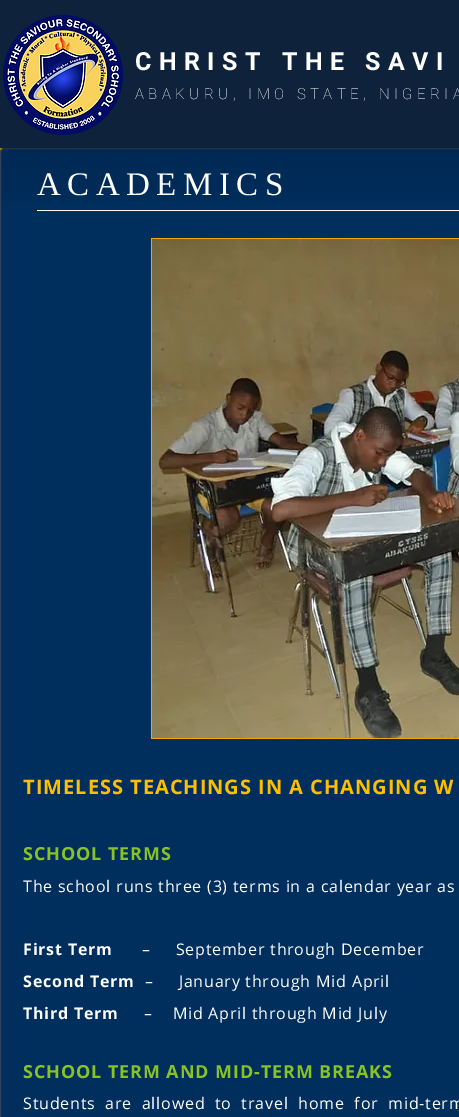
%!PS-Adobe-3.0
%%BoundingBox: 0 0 459 1117
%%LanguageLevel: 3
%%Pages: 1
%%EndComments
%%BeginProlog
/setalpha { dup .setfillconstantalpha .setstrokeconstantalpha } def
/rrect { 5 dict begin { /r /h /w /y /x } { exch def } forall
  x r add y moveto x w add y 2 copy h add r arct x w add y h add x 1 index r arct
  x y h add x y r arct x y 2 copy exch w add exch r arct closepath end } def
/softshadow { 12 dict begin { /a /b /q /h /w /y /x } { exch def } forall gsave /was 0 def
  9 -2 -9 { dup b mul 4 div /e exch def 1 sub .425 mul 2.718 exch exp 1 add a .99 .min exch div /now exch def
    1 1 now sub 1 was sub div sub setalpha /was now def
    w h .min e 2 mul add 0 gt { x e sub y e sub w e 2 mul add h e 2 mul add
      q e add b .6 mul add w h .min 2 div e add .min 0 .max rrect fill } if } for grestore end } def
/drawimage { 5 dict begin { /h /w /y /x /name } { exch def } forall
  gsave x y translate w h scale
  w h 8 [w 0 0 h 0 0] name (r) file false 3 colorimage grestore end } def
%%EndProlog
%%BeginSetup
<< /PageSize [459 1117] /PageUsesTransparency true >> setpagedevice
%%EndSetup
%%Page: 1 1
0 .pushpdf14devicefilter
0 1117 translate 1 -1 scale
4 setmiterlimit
0.922 0.667 0.027 setrgbcolor
0 0 459 1117 rectfill
0 setgray
0 149 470 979 5 2 0.6 softshadow
0 0.18 0.365 setrgbcolor
0 148 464 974 5 rrect fill
(images/2.raw) 0 151 459 50 drawimage
0.196 0.255 0.345 setrgbcolor
0.5 148.5 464 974 4.5 rrect stroke
0 setgray
0 0 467 148 0 2.5 0.5 softshadow
0.055 0.133 0.235 setrgbcolor
0 0 459 148 rectfill
(images/1.raw) 3 15 120 120 drawimage
0.973 setgray
37 210 422 1 rectfill
0.922 0.667 0.027 setrgbcolor
151 238 308 501 rectfill
(images/3.raw) 152 239 307 499 drawimage
/Roboto-Bold [25 0 0 -25 0 0] selectfont
1 setgray
135 70 moveto 7.5 0 (CHRIST THE SAVI) ashow
/Roboto-Thin [15 0 0 -15 0 0] selectfont
135 99 moveto 4.5 0 (ABAKURU, IMO STATE, NIGERIA) ashow
/LiberationSerif-Regular [33 0 0 -33 0 0] selectfont
37 195 moveto 6.5 0 (ACADEMICS) ashow
/OpenSans-Bold [20 0 0 -20 0 0] selectfont
1 0.749 0 setrgbcolor
23 794 moveto 1 0 (TIMELESS TEACHINGS IN A CHANGING W) ashow
/OpenSans-Bold [18 0 0 -18 0 0] selectfont
0.533 0.761 0.145 setrgbcolor
23 860 moveto 0.9 0 (SCHOOL TERMS) ashow
/OpenSans-Regular [16 0 0 -16 0 0] selectfont
1 setgray
23 892 moveto 0.8 0 (The school runs three \(3\) terms in a calendar year as) ashow
/OpenSans-Bold [16 0 0 -16 0 0] selectfont
23 955 moveto 0.8 0 (First Term) ashow
/OpenSans-Regular [16 0 0 -16 0 0] selectfont
142 955 moveto 0.8 0 (–     September through December) ashow
/OpenSans-Bold [16 0 0 -16 0 0] selectfont
23 987 moveto 0.8 0 (Second Term) ashow
/OpenSans-Regular [16 0 0 -16 0 0] selectfont
145 987 moveto 0.8 0 (–     January through Mid April) ashow
/OpenSans-Bold [16 0 0 -16 0 0] selectfont
23 1019 moveto 0.8 0 (Third Term) ashow
/OpenSans-Regular [16 0 0 -16 0 0] selectfont
144 1019 moveto 0.8 0 (–    Mid April through Mid July) ashow
/OpenSans-Bold [18 0 0 -18 0 0] selectfont
0.533 0.761 0.145 setrgbcolor
23 1078 moveto 0.9 0 (SCHOOL TERM AND MID-TERM BREAKS) ashow
/OpenSans-Regular [16 0 0 -16 0 0] selectfont
1 setgray
23 1109 moveto 4.75 0 32 0.8 0 (Students are allowed to travel home for mid-term) awidthshow
.poppdf14devicefilter showpage
%%EOF
